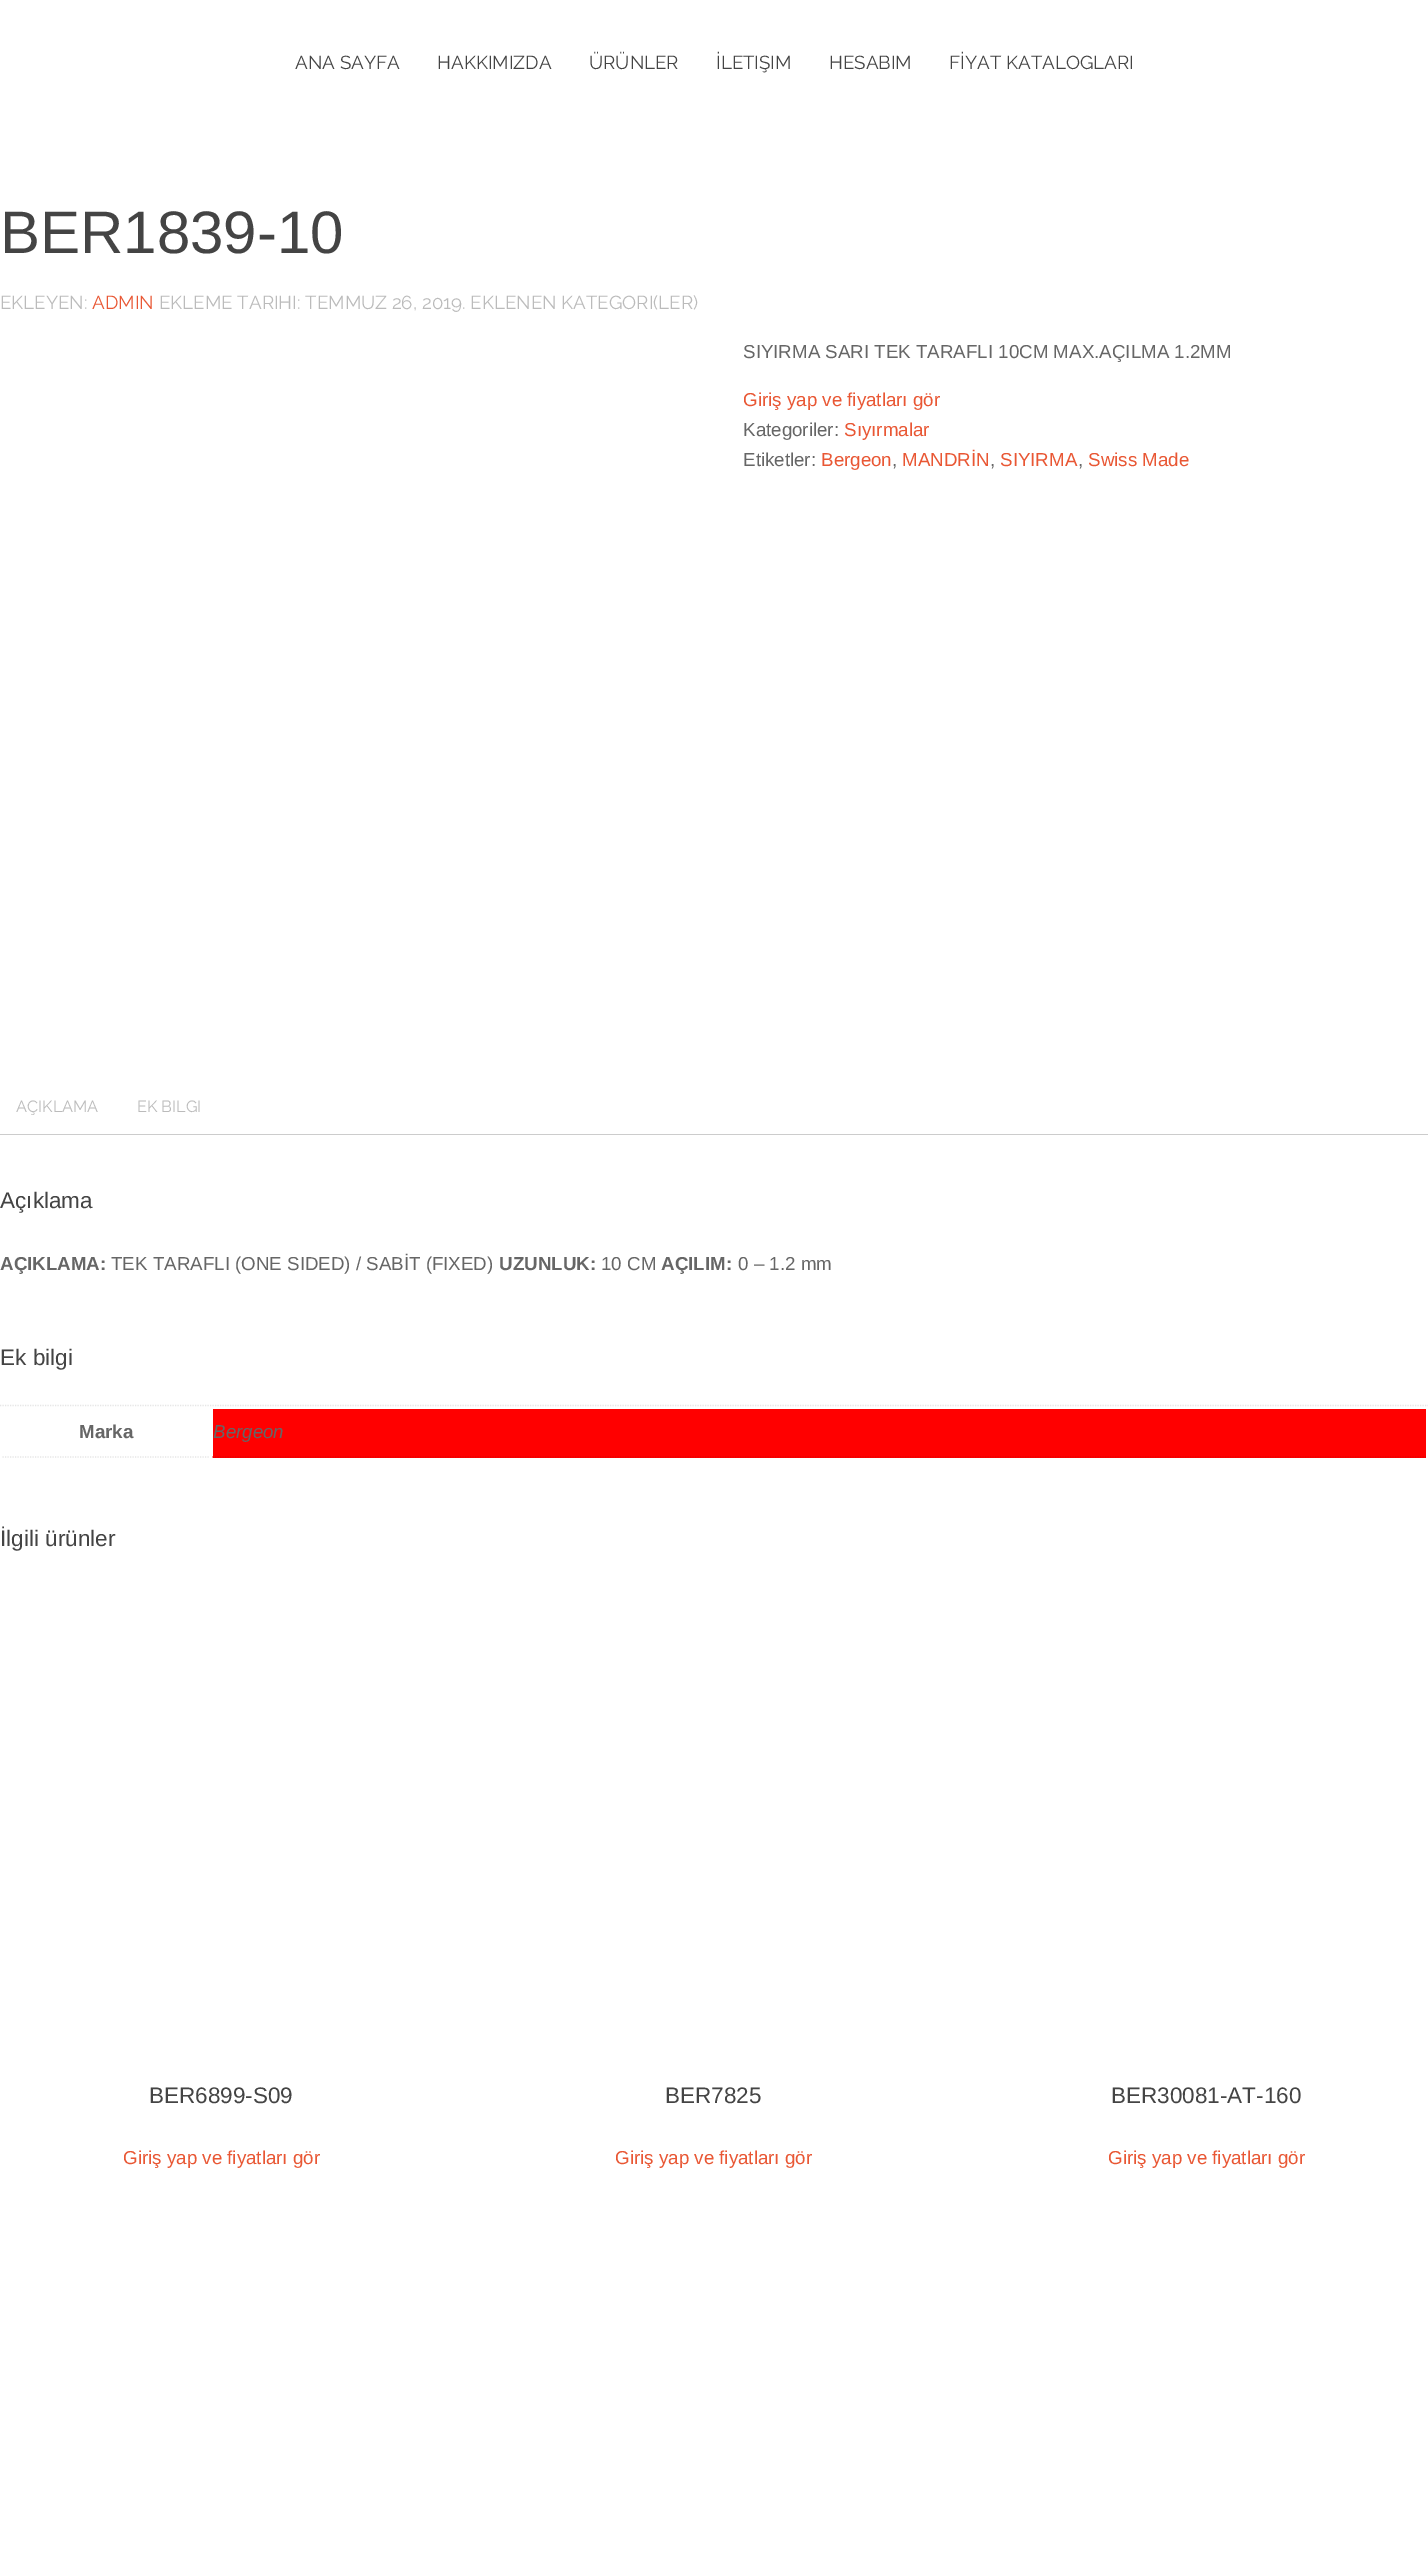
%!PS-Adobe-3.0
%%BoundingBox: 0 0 1428 2565
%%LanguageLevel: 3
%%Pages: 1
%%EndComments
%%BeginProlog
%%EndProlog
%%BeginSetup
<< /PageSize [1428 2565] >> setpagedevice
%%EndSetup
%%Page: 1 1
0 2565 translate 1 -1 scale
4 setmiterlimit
1 setgray
0 0 1428 2565 rectfill
0.8 setgray
0 1134 1428 1 rectfill
0.902 setgray
1.2 setlinewidth
[1.25 1.25] 0 setdash
newpath 0 1405.5 moveto 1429 1405.5 lineto stroke
newpath 2.5 1457 moveto 210 1457 lineto stroke
1 0 0 setrgbcolor
213 1409 1213 49 rectfill
0.902 0 0 setrgbcolor
newpath 212.5 1457 moveto 1426 1457 lineto stroke
/Raleway-Regular [18.75 0 0 -18.75 0 0] selectfont
0.267 setgray
295 69 moveto (ANA SAYFA) show
437 69 moveto (HAKKIMIZDA) show
589 69 moveto (ÜRÜNLER) show
716 69 moveto (İLETIŞIM) show
829 69 moveto (HESABIM) show
949 69 moveto (FİYAT KATALOGLARI) show
/LiberationSans-Regular [60 0 0 -60 0 0] selectfont
0 253 moveto (BER1839-10) show
/Raleway-Regular [18.75 0 0 -18.75 0 0] selectfont
0.733 setgray
0 309 moveto (EKLEYEN:) show
0.914 0.341 0.204 setrgbcolor
92 309 moveto (ADMIN) show
0.733 setgray
159 309 moveto (EKLEME TARIHI: TEMMUZ 26, 2019. EKLENEN KATEGORI\(LER\)) show
/LiberationSans-Regular [18.75 0 0 -18.75 0 0] selectfont
0.4 setgray
743 358 moveto (SIYIRMA SARI TEK TARAFLI 10CM MAX.AÇILMA 1.2MM) show
0.914 0.341 0.204 setrgbcolor
743 406 moveto (Giriş yap ve fiyatları gör) show
0.4 setgray
743 436 moveto (Kategoriler:) show
0.914 0.341 0.204 setrgbcolor
844 436 moveto (Sıyırmalar) show
0.4 setgray
743 466 moveto (Etiketler:) show
0.914 0.341 0.204 setrgbcolor
821 466 moveto (Bergeon) show
0.4 setgray
892 466 moveto (,) show
0.914 0.341 0.204 setrgbcolor
902 466 moveto (MANDRİN) show
0.4 setgray
990 466 moveto (,) show
0.914 0.341 0.204 setrgbcolor
1000 466 moveto (SIYIRMA) show
0.4 setgray
1078 466 moveto (,) show
0.914 0.341 0.204 setrgbcolor
1088 466 moveto (Swiss Made) show
/Raleway-Regular [16.25 0 0 -16.25 0 0] selectfont
0.733 setgray
16 1112 moveto (AÇIKLAMA) show
137 1112 moveto (EK BILGI) show
/LiberationSans-Regular [22.5 0 0 -22.5 0 0] selectfont
0.267 setgray
0 1208 moveto (Açıklama) show
/LiberationSans-Bold [18.75 0 0 -18.75 0 0] selectfont
0.4 setgray
0 1270 moveto (AÇIKLAMA:) show
/LiberationSans-Regular [18.75 0 0 -18.75 0 0] selectfont
111 1270 moveto (TEK TARAFLI \(ONE SIDED\) / SABİT \(FIXED\)) show
/LiberationSans-Bold [18.75 0 0 -18.75 0 0] selectfont
499 1270 moveto (UZUNLUK:) show
/LiberationSans-Regular [18.75 0 0 -18.75 0 0] selectfont
601 1270 moveto (10 CM) show
/LiberationSans-Bold [18.75 0 0 -18.75 0 0] selectfont
661 1270 moveto (AÇILIM:) show
/LiberationSans-Regular [18.75 0 0 -18.75 0 0] selectfont
738 1270 moveto (0 – 1.2 mm) show
/LiberationSans-Regular [22.5 0 0 -22.5 0 0] selectfont
0.267 setgray
0 1365 moveto (Ek bilgi) show
/LiberationSans-Bold [18.75 0 0 -18.75 0 0] selectfont
0.4 setgray
79 1438 moveto (Marka) show
/LiberationSans-Italic [18.75 0 0 -18.75 0 0] selectfont
213 1438 moveto (Bergeon) show
/LiberationSans-Regular [22.5 0 0 -22.5 0 0] selectfont
0.267 setgray
0 1546 moveto (İlgili ürünler) show
149 2103 moveto (BER6899-S09) show
/LiberationSans-Regular [18.75 0 0 -18.75 0 0] selectfont
0.914 0.341 0.204 setrgbcolor
123 2164 moveto (Giriş yap ve fiyatları gör) show
/LiberationSans-Regular [22.5 0 0 -22.5 0 0] selectfont
0.267 setgray
665 2103 moveto (BER7825) show
/LiberationSans-Regular [18.75 0 0 -18.75 0 0] selectfont
0.914 0.341 0.204 setrgbcolor
615 2164 moveto (Giriş yap ve fiyatları gör) show
/LiberationSans-Regular [22.5 0 0 -22.5 0 0] selectfont
0.267 setgray
1111 2103 moveto (BER30081-AT-160) show
/LiberationSans-Regular [18.75 0 0 -18.75 0 0] selectfont
0.914 0.341 0.204 setrgbcolor
1108 2164 moveto (Giriş yap ve fiyatları gör) show
showpage
%%EOF
